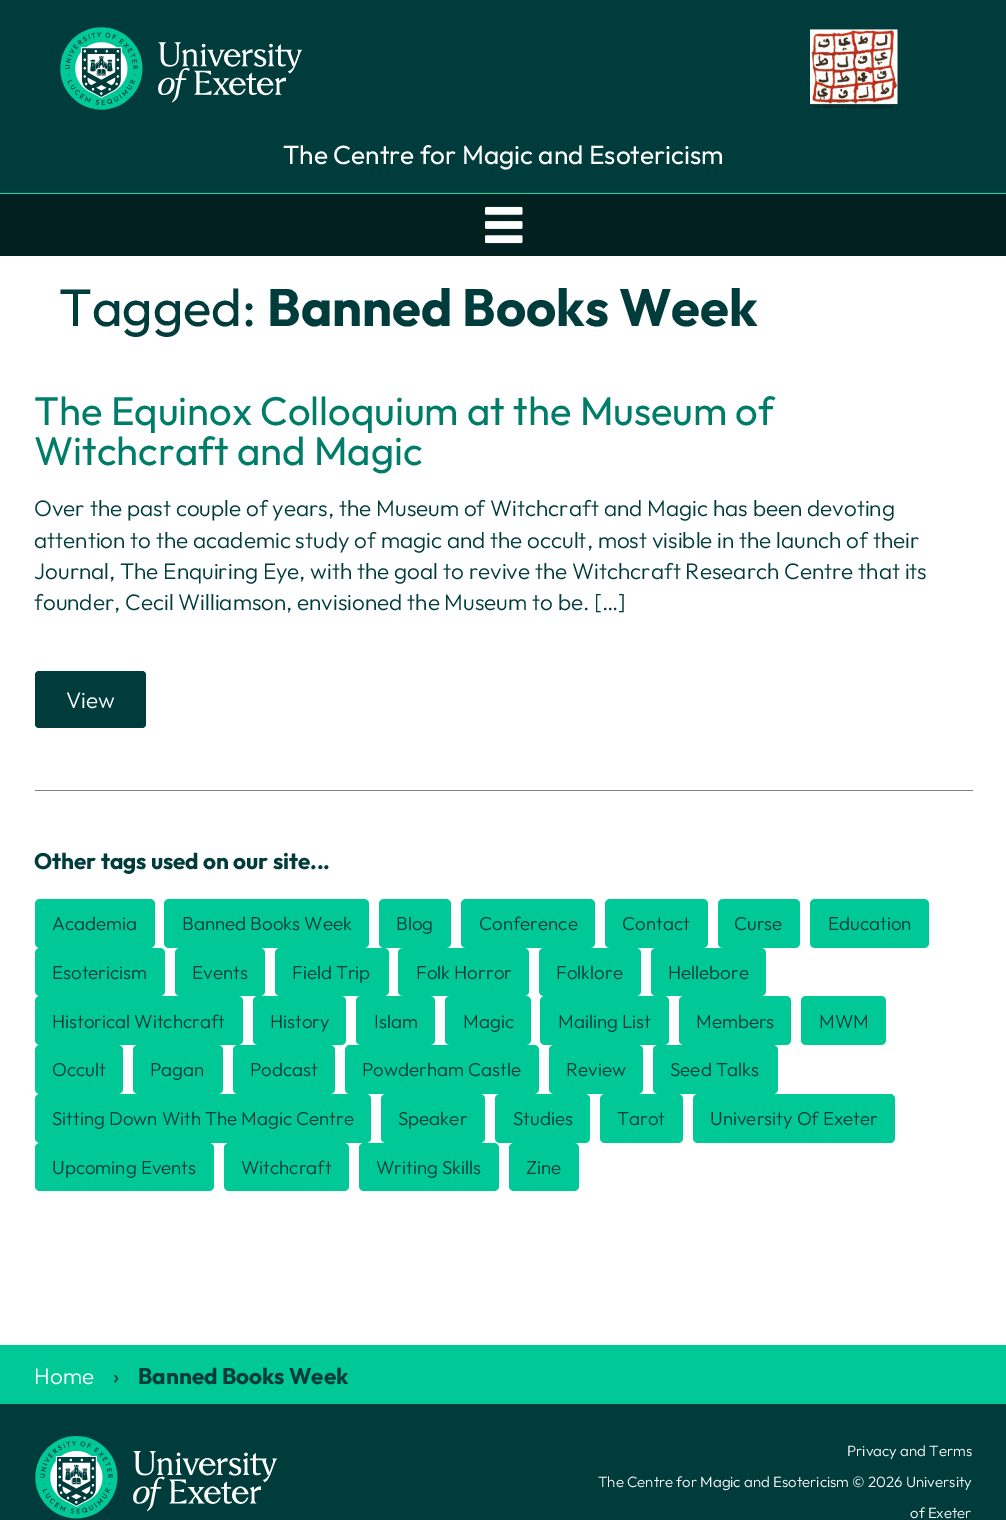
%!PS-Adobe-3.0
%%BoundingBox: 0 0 1006 1520
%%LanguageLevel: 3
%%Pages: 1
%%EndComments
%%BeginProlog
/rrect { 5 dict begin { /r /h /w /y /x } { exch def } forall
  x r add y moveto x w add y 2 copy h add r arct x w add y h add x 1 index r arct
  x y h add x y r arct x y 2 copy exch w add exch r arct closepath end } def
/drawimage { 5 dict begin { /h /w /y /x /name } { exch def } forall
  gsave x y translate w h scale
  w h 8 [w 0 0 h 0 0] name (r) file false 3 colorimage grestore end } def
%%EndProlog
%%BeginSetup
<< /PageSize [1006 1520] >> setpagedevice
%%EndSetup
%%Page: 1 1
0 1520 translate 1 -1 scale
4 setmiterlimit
1 setgray
0 0 1006 1520 rectfill
0 0.235 0.235 setrgbcolor
0 0 1006 193 rectfill
(images/1.raw) 60 27 243 83 drawimage
(images/2.raw) 810 29 88 80 drawimage
0.008 0.125 0.125 setrgbcolor
0 194 1006 62 rectfill
0 0.863 0.647 setrgbcolor
0 193 1006 1 rectfill
(images/3.raw) 485 206 38 38 drawimage
0 0.235 0.235 setrgbcolor
35 671 111 57 4 rrect fill
0.502 setgray
35 790 938 1 rectfill
0 0.784 0.588 setrgbcolor
35 899 120 49 5 rrect fill
164 899 205 49 5 rrect fill
379 899 72 49 5 rrect fill
461 899 134 49 5 rrect fill
605 899 103 49 5 rrect fill
718 899 82 49 5 rrect fill
810 899 119 49 5 rrect fill
35 948 130 48 5 rrect fill
175 948 90 48 5 rrect fill
275 948 114 48 5 rrect fill
398 948 131 48 5 rrect fill
539 948 102 48 5 rrect fill
651 948 115 48 5 rrect fill
35 996 208 49 5 rrect fill
253 996 93 49 5 rrect fill
356 996 79 49 5 rrect fill
445 996 86 49 5 rrect fill
540 996 129 49 5 rrect fill
679 996 112 49 5 rrect fill
801 996 85 49 5 rrect fill
35 1045 88 49 5 rrect fill
133 1045 90 49 5 rrect fill
233 1045 102 49 5 rrect fill
345 1045 194 49 5 rrect fill
549 1045 94 49 5 rrect fill
653 1045 125 49 5 rrect fill
35 1094 336 49 5 rrect fill
381 1094 104 49 5 rrect fill
495 1094 95 49 5 rrect fill
600 1094 83 49 5 rrect fill
693 1094 202 49 5 rrect fill
35 1143 179 48 5 rrect fill
224 1143 125 48 5 rrect fill
359 1143 140 48 5 rrect fill
509 1143 70 48 5 rrect fill
0 1345 1006 59 rectfill
0 0.235 0.235 setrgbcolor
0 1404 1006 116 rectfill
(images/4.raw) 35 1436 243 83 drawimage
/Outfit-Regular [26.25 0 0 -26.25 0 0] selectfont
1 setgray
283 164 moveto (The Centre for Magic and Esotericism) show
/Outfit-Regular [52.5 0 0 -52.5 0 0] selectfont
0 0.235 0.235 setrgbcolor
59 326 moveto (Tagged:) show
/Outfit-Bold [52.5 0 0 -52.5 0 0] selectfont
267 326 moveto (Banned Books Week) show
/Outfit-Regular [40 0 0 -40 0 0] selectfont
0 0.49 0.412 setrgbcolor
34 425 moveto (The Equinox Colloquium at the Museum of) show
34 465 moveto (Witchcraft and Magic) show
/Outfit-Light [22.5 0 0 -22.5 0 0] selectfont
0 0.235 0.235 setrgbcolor
34 516 moveto (Over the past couple of years, the Museum of Witchcraft and Magic has been devoting) show
34 548 moveto (attention to the academic study of magic and the occult, most visible in the launch of their) show
34 579 moveto (Journal, The Enquiring Eye, with the goal to revive the Witchcraft Research Centre that its) show
34 610 moveto (founder, Cecil Williamson, envisioned the Museum to be. […]) show
1 setgray
66 708 moveto (View) show
/Outfit-Bold [22.5 0 0 -22.5 0 0] selectfont
0 0.235 0.235 setrgbcolor
34 869 moveto (Other tags used on our site...) show
/Outfit-Light [18.75 0 0 -18.75 0 0] selectfont
52 930 moveto (Academia) show
182 930 moveto (Banned Books Week) show
396 930 moveto (Blog) show
479 930 moveto (Conference) show
622 930 moveto (Contact) show
734 930 moveto (Curse) show
828 930 moveto (Education) show
52 979 moveto (Esotericism) show
192 979 moveto (Events) show
292 979 moveto (Field Trip) show
416 979 moveto (Folk Horror) show
556 979 moveto (Folklore) show
668 979 moveto (Hellebore) show
52 1028 moveto (Historical Witchcraft) show
270 1028 moveto (History) show
374 1028 moveto (Islam) show
463 1028 moveto (Magic) show
558 1028 moveto (Mailing List) show
696 1028 moveto (Members) show
819 1028 moveto (MWM) show
52 1076 moveto (Occult) show
150 1076 moveto (Pagan) show
250 1076 moveto (Podcast) show
362 1076 moveto (Powderham Castle) show
566 1076 moveto (Review) show
670 1076 moveto (Seed Talks) show
52 1125 moveto (Sitting Down With The Magic Centre) show
398 1125 moveto (Speaker) show
513 1125 moveto (Studies) show
617 1125 moveto (Tarot) show
710 1125 moveto (University Of Exeter) show
52 1174 moveto (Upcoming Events) show
241 1174 moveto (Witchcraft) show
376 1174 moveto (Writing Skills) show
526 1174 moveto (Zine) show
/Outfit-Light [22.5 0 0 -22.5 0 0] selectfont
1 setgray
34 1384 moveto (Home) show
/Outfit-Regular [22.5 0 0 -22.5 0 0] selectfont
0 0.235 0.235 setrgbcolor
113 1384 moveto (›) show
/Outfit-Bold [22.5 0 0 -22.5 0 0] selectfont
138 1384 moveto (Banned Books Week) show
/Outfit-Light [15 0 0 -15 0 0] selectfont
1 setgray
847 1456 moveto (Privacy and Terms) show
598 1487 moveto (The Centre for Magic and Esotericism © 2026 University) show
910 1518 moveto (of Exeter) show
showpage
%%EOF
